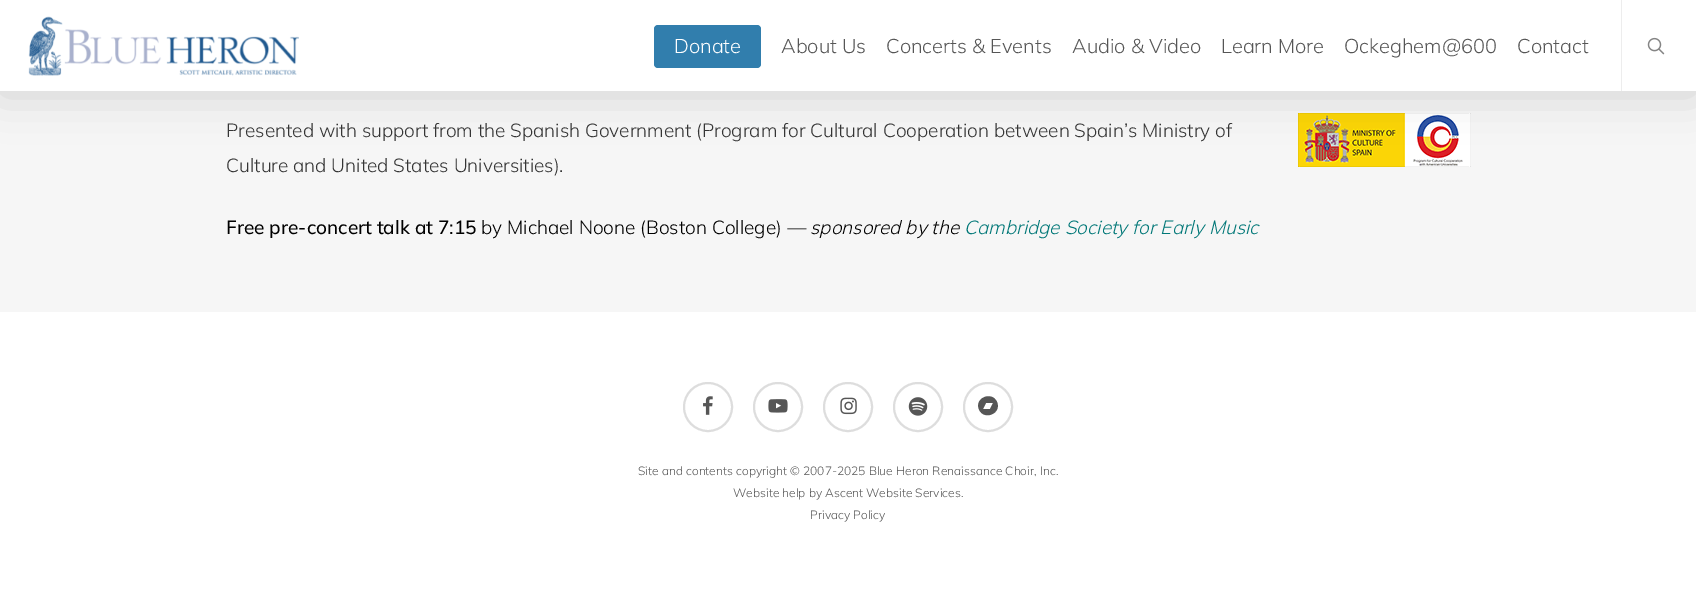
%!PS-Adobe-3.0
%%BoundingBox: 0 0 1696 596
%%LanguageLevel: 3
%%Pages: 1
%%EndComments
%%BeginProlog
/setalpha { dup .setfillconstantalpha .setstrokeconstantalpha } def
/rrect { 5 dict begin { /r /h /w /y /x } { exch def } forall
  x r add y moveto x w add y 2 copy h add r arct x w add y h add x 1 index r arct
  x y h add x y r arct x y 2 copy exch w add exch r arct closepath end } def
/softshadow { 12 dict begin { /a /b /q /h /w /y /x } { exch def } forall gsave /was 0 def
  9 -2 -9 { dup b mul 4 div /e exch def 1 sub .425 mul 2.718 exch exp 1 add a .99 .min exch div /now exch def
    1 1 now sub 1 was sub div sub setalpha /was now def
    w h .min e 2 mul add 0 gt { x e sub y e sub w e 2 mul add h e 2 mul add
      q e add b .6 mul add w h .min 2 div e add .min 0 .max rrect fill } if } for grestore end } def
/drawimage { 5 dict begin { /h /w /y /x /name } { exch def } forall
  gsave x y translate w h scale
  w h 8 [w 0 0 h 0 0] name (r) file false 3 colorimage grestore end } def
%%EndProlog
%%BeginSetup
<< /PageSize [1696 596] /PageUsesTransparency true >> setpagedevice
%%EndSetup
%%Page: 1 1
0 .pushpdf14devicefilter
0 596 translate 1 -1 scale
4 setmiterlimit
1 setgray
0 0 1696 596 rectfill
0.965 setgray
0 91 1696 221 rectfill
(images/3.raw) 1298 113 173 54 drawimage
0 setgray
0 3 1696 91 0 22.5 0.15 softshadow
1 setgray
0 0 1696 91 rectfill
(images/1.raw) 28 16 271 60 drawimage
0.192 0.494 0.678 setrgbcolor
654 25 107 43 4 rrect fill
0.929 setgray
1621 0 1 91 rectfill
(images/2.raw) 1647 37 18 18 drawimage
(images/4.raw) 703 396 10 19 drawimage
0.867 setgray
2 setlinewidth
newpath 708 407 24 0 360 arc closepath stroke
(images/5.raw) 768 399 20 14 drawimage
newpath 778 407 24 0 360 arc closepath stroke
(images/6.raw) 840 397 17 18 drawimage
newpath 848 407 24 0 360 arc closepath stroke
(images/7.raw) 908 397 20 19 drawimage
newpath 918 407 24 0 360 arc closepath stroke
0.337 setgray
newpath 990 409 moveto 993 403 lineto 986 403 lineto 983 409 lineto closepath 997 402 moveto 1002 413.5 984 421 979 409.5 curveto 974 398 992 390.5 997 402 curveto closepath fill
0.867 setgray
newpath 988 407 24 0 360 arc closepath stroke
/Mulish-Light [20 0 0 -20 0 0] selectfont
1 setgray
674 53 moveto (Donate) show
0.337 setgray
781 53 moveto (About Us) show
886 53 moveto (Concerts & Events) show
1072 53 moveto (Audio & Video) show
1221 53 moveto (Learn More) show
1344 53 moveto (Ockeghem@600) show
1517 53 moveto (Contact) show
/Mulish-Light [19 0 0 -19 0 0] selectfont
0.208 setgray
226 137 moveto (Presented with support from the Spanish Government \(Program for Cultural Cooperation between Spain’s Ministry of) show
226 172 moveto (Culture and United States Universities\).) show
/Mulish-Medium [19 0 0 -19 0 0] selectfont
0 setgray
226 234 moveto (Free pre-concert talk at 7:15) show
/Mulish-Light [19 0 0 -19 0 0] selectfont
481 234 moveto (by Michael Noone \(Boston College\)) show
/Mulish-LightItalic [19 0 0 -19 0 0] selectfont
786 234 moveto (— sponsored by the) show
0 0.467 0.467 setrgbcolor
964 234 moveto (Cambridge Society for Early Music) show
/Mulish-Light [12 0 0 -12 0 0] selectfont
0.337 setgray
638 475 moveto (Site and contents copyright © 2007-2025 Blue Heron Renaissance Choir, Inc.) show
733 497 moveto (Website help by Ascent Website Services.) show
810 519 moveto (Privacy Policy) show
.poppdf14devicefilter showpage
%%EOF
